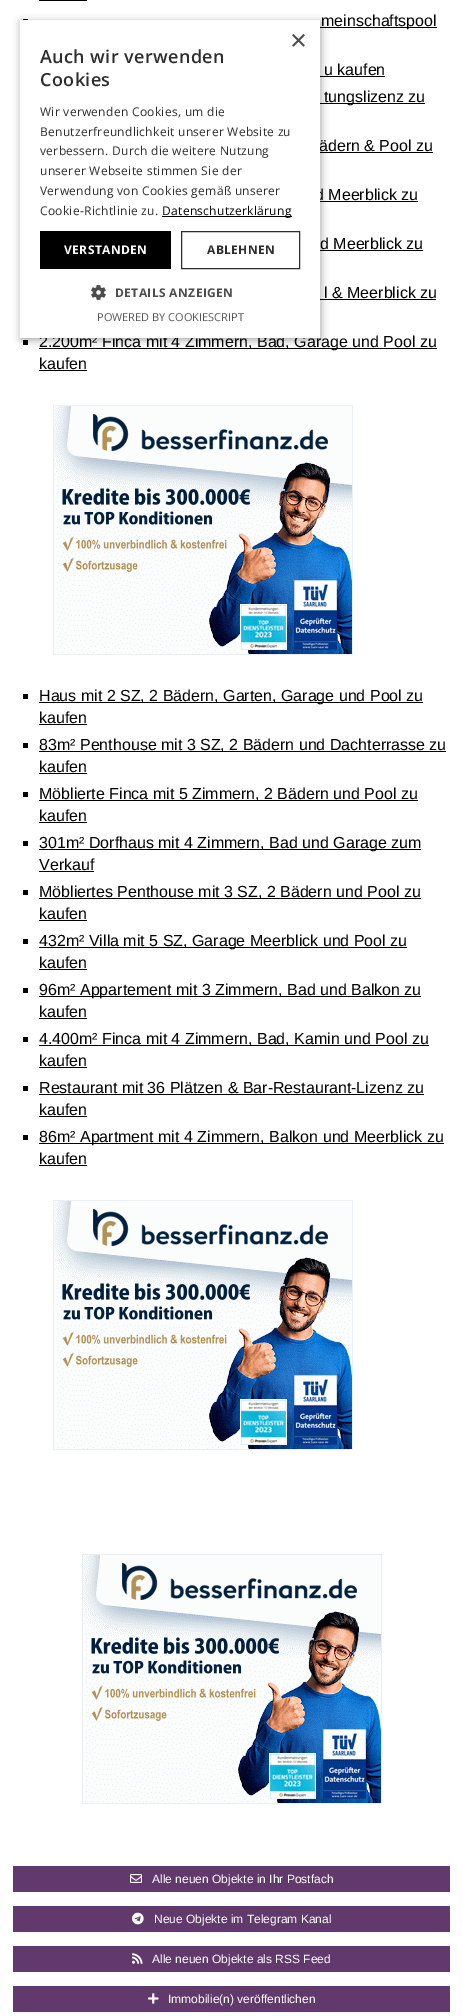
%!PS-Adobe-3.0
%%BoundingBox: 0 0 463 2016
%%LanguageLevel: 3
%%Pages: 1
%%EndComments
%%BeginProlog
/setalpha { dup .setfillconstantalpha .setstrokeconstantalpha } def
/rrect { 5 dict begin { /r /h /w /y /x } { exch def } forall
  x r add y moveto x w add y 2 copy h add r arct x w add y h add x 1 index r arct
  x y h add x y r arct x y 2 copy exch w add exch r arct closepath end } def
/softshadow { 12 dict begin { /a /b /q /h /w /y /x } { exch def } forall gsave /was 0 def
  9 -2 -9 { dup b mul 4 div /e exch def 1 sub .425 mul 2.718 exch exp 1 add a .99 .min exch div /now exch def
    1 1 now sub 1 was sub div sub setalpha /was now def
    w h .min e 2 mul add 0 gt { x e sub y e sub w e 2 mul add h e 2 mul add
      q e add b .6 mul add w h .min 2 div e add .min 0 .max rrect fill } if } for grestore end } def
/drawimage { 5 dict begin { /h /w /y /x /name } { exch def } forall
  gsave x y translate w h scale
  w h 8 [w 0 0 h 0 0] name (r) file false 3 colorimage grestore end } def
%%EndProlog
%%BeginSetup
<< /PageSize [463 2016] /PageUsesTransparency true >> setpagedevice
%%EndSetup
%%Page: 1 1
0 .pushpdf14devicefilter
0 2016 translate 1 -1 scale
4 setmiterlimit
1 setgray
0 0 463 2016 rectfill
0 setgray
39 0 48 1 rectfill
23 19 5 1 rectfill
320 27 117 1 rectfill
320 76 65 1 rectfill
320 103 105 1 rectfill
320 152 113 1 rectfill
320 201 98 1 rectfill
320 250 103 1 rectfill
320 299 116 1 rectfill
23 340 5 5 rectfill
39 348 398 1 rectfill
39 370 48 1 rectfill
(images/1.raw) 53 405 300 250 drawimage
23 694 5 5 rectfill
39 702 384 1 rectfill
39 724 48 1 rectfill
23 743 5 5 rectfill
39 751 407 1 rectfill
39 773 48 1 rectfill
23 792 5 5 rectfill
39 800 379 1 rectfill
39 822 48 1 rectfill
23 841 5 5 rectfill
39 849 382 1 rectfill
39 871 55 1 rectfill
23 890 5 5 rectfill
39 898 382 1 rectfill
39 920 48 1 rectfill
23 939 5 5 rectfill
39 947 368 1 rectfill
39 969 48 1 rectfill
23 988 5 5 rectfill
39 996 382 1 rectfill
39 1018 48 1 rectfill
23 1037 5 5 rectfill
39 1045 390 1 rectfill
39 1067 48 1 rectfill
23 1086 5 5 rectfill
39 1094 385 1 rectfill
39 1116 48 1 rectfill
23 1135 5 5 rectfill
39 1143 405 1 rectfill
39 1165 48 1 rectfill
(images/1.raw) 53 1200 300 250 drawimage
(images/1.raw) 82 1554 300 250 drawimage
0.384 0.224 0.424 setrgbcolor
13 1866 437 26 rectfill
(images/2.raw) 130 1874 12 9 drawimage
13 1906 437 26 rectfill
(images/3.raw) 132 1912 12 13 drawimage
13 1946 437 26 rectfill
(images/4.raw) 132 1953 11 11 drawimage
13 1986 437 26 rectfill
(images/5.raw) 148 1993 11 11 drawimage
0 setgray
21 22 300 318 0 4 0.35 softshadow
/LiberationSans-Regular [16 0 0 -16 0 0] selectfont
321 26 moveto (meinschaftspool) show
324 75 moveto (u kaufen) show
324 102 moveto (tungslizenz zu) show
319 151 moveto (ädern & Pool zu) show
315 200 moveto (d Meerblick zu) show
320 249 moveto (d Meerblick zu) show
324 298 moveto (l & Meerblick zu) show
39 347 moveto (2.200m² Finca mit 4 Zimmern, Bad, Garage und Pool zu) show
39 369 moveto (kaufen) show
39 701 moveto (Haus mit 2 SZ, 2 Bädern, Garten, Garage und Pool zu) show
39 723 moveto (kaufen) show
39 750 moveto (83m² Penthouse mit 3 SZ, 2 Bädern und Dachterrasse zu) show
39 772 moveto (kaufen) show
39 799 moveto (Möblierte Finca mit 5 Zimmern, 2 Bädern und Pool zu) show
39 821 moveto (kaufen) show
39 848 moveto (301m² Dorfhaus mit 4 Zimmern, Bad und Garage zum) show
39 870 moveto (Verkauf) show
39 897 moveto (Möbliertes Penthouse mit 3 SZ, 2 Bädern und Pool zu) show
39 919 moveto (kaufen) show
39 946 moveto (432m² Villa mit 5 SZ, Garage Meerblick und Pool zu) show
39 968 moveto (kaufen) show
39 995 moveto (96m² Appartement mit 3 Zimmern, Bad und Balkon zu) show
39 1017 moveto (kaufen) show
39 1044 moveto (4.400m² Finca mit 4 Zimmern, Bad, Kamin und Pool zu) show
39 1066 moveto (kaufen) show
39 1093 moveto (Restaurant mit 36 Plätzen & Bar-Restaurant-Lizenz zu) show
39 1115 moveto (kaufen) show
39 1142 moveto (86m² Apartment mit 4 Zimmern, Balkon und Meerblick zu) show
39 1164 moveto (kaufen) show
/LiberationSans-Regular [12 0 0 -12 0 0] selectfont
1 setgray
152 1883 moveto (Alle neuen Objekte in Ihr Postfach) show
154 1923 moveto (Neue Objekte im Telegram Kanal) show
152 1963 moveto (Alle neuen Objekte als RSS Feed) show
168 2003 moveto (Immobilie\(n\) veröffentlichen) show
20 20 300 318 rectfill
/LiberationSans-Regular [29 0 0 -29 0 0] selectfont
0.302 setgray
290 50 moveto (×) show
/OpenSans-SemiBold [18 0 0 -18 0 0] selectfont
0.176 setgray
40 63 moveto 0.4 0 (Auch wir verwenden) ashow
40 86 moveto 0.4 0 (Cookies) ashow
/OpenSans-Regular [12 0 0 -12 0 0] selectfont
40 116 moveto 0.3 0 (Wir verwenden Cookies, um die) ashow
40 136 moveto 0.3 0 (Benutzerfreundlichkeit unserer Website zu) ashow
40 155 moveto 0.3 0 (verbessern. Durch die weitere Nutzung) ashow
40 175 moveto 0.3 0 (unserer Webseite stimmen Sie der) ashow
40 195 moveto 0.3 0 (Verwendung von Cookies gemäß unserer) ashow
40 215 moveto 0.3 0 (Cookie-Richtlinie zu.) ashow
0 setgray
162 216 130 1 rectfill
162 215 moveto 0.3 0 (Datenschutzerklärung) ashow
40 231 131 38 rectfill
/OpenSans-Bold [12 0 0 -12 0 0] selectfont
1 setgray
64 254 moveto 0.4 0 (VERSTANDEN) ashow
0.176 setgray
181.5 231.5 118 37 rectstroke
207 254 moveto 0.4 0 (ABLEHNEN) ashow
(images/6.raw) 91 285 15 15 drawimage
0.302 setgray
115 297 moveto 0.4 0 (DETAILS ANZEIGEN) ashow
/OpenSans-Regular [11 0 0 -11 0 0] selectfont
0.341 setgray
97 321 moveto (POWERED BY COOKIESCRIPT) show
.poppdf14devicefilter showpage
%%EOF
